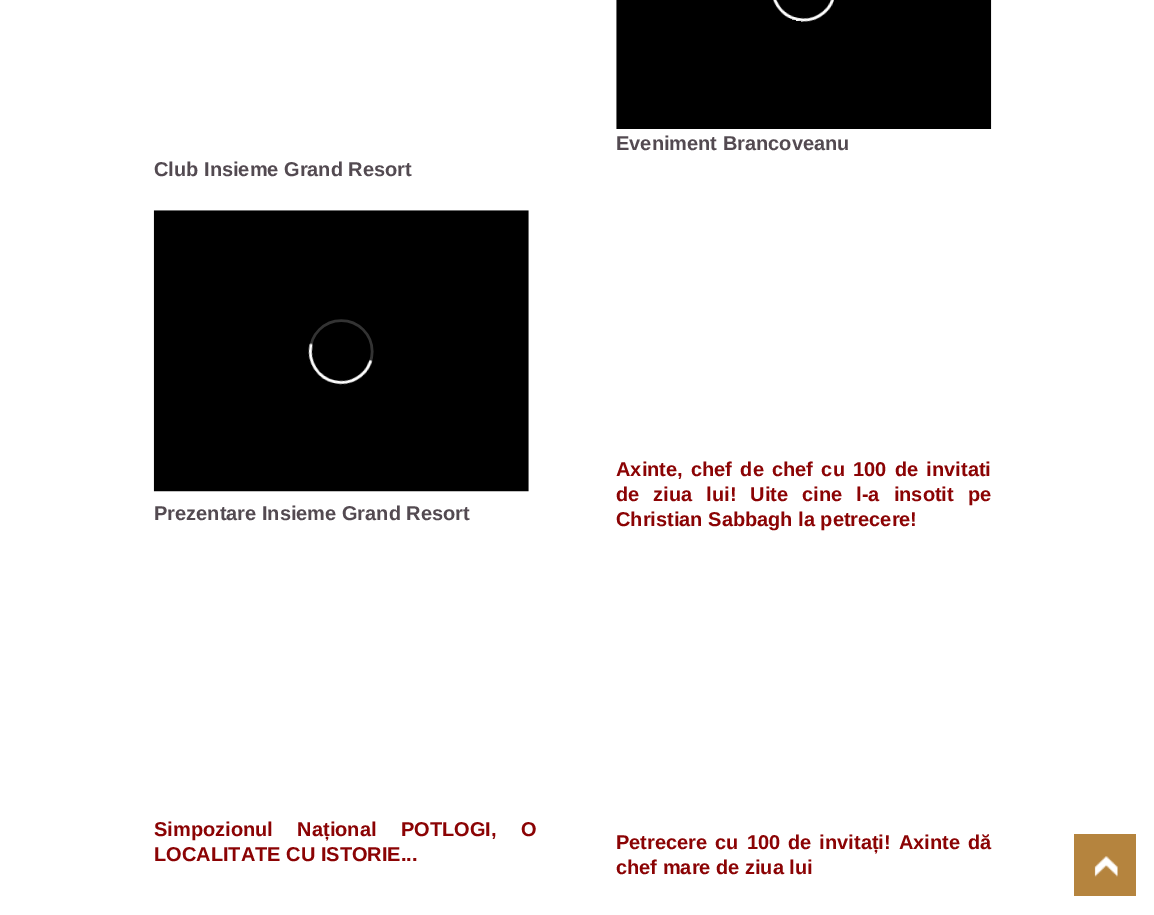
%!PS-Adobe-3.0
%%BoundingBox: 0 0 1154 915
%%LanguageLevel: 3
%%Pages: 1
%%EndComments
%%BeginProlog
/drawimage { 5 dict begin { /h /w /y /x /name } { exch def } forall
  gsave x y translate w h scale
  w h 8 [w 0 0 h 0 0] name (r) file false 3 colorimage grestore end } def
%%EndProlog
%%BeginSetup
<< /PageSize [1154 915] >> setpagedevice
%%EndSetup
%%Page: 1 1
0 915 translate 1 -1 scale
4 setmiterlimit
1 setgray
0 0 1154 915 rectfill
(images/1.raw) 616 0 376 129 drawimage
(images/2.raw) 153 210 376 282 drawimage
0.71 0.518 0.243 setrgbcolor
1074 834 62 62 rectfill
(images/3.raw) 1094 856 24 21 drawimage
/LiberationSans-Bold [20 0 0 -20 0 0] selectfont
0.325 0.29 0.318 setrgbcolor
616 150 moveto (Eveniment Brancoveanu) show
154 176 moveto (Club Insieme Grand Resort) show
154 520 moveto (Prezentare Insieme Grand Resort) show
0.545 0.012 0.016 setrgbcolor
616 476 moveto 2.75 0 32 (Axinte, chef de chef cu 100 de invitati) widthshow
616 501 moveto 8.5 0 32 (de ziua lui! Uite cine l-a insotit pe) widthshow
616 526 moveto (Christian Sabbagh la petrecere!) show
154 836 moveto 19 0 32 (Simpozionul Național POTLOGI, O) widthshow
154 861 moveto (LOCALITATE CU ISTORIE...) show
616 849 moveto 2.5 0 32 (Petrecere cu 100 de invitați! Axinte dă) widthshow
616 874 moveto (chef mare de ziua lui) show
showpage
%%EOF
